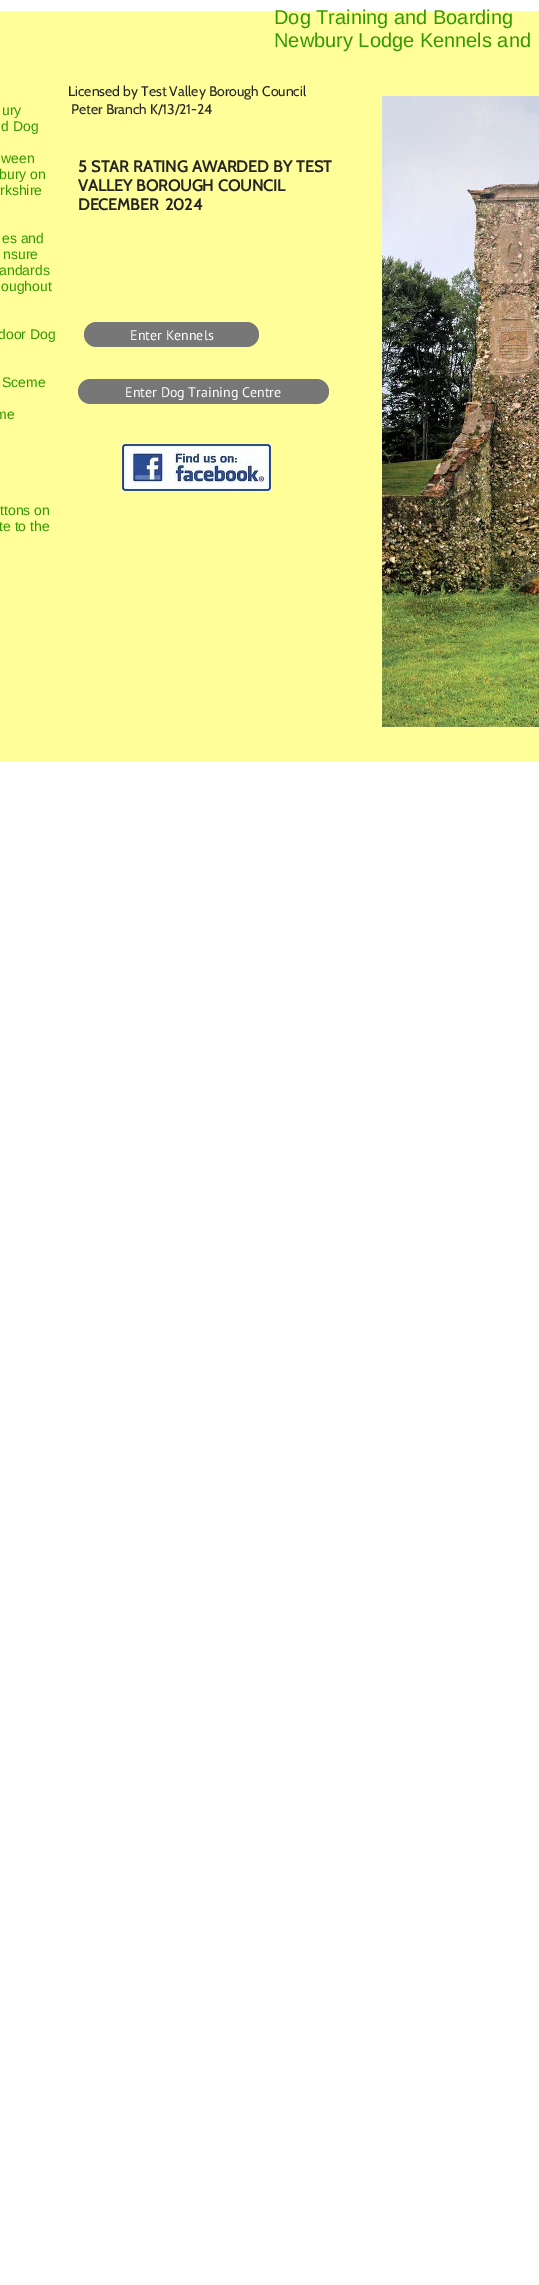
%!PS-Adobe-3.0
%%BoundingBox: 0 0 539 2285
%%LanguageLevel: 3
%%Pages: 1
%%EndComments
%%BeginProlog
/rrect { 5 dict begin { /r /h /w /y /x } { exch def } forall
  x r add y moveto x w add y 2 copy h add r arct x w add y h add x 1 index r arct
  x y h add x y r arct x y 2 copy exch w add exch r arct closepath end } def
/drawimage { 5 dict begin { /h /w /y /x /name } { exch def } forall
  gsave x y translate w h scale
  w h 8 [w 0 0 h 0 0] name (r) file false 3 colorimage grestore end } def
%%EndProlog
%%BeginSetup
<< /PageSize [539 2285] >> setpagedevice
%%EndSetup
%%Page: 1 1
0 2285 translate 1 -1 scale
4 setmiterlimit
1 setgray
0 0 539 2285 rectfill
1 0.996 0.6 setrgbcolor
0 11 539 750 rectfill
(images/1.raw) 382 96 157 631 drawimage
0.467 setgray
84 322 175 25 12.5 rrect fill
78 379 251 25 12.5 rrect fill
(images/2.raw) 122 444 149 47 drawimage
/LiberationSans-Regular [20 0 0 -20 0 0] selectfont
0.2 0.6 0 setrgbcolor
274 24 moveto (Dog Training and Boarding) show
274 47 moveto (Newbury Lodge Kennels and) show
/LiberationSans-Regular [14 0 0 -14 0 0] selectfont
2 115 moveto (ury) show
1 131 moveto (d Dog) show
1 163 moveto (ween) show
-1 179 moveto (bury on) show
0 195 moveto (rkshire) show
2 243 moveto (es and) show
3 259 moveto (nsure) show
-1 275 moveto (andards) show
1 291 moveto (oughout) show
-2 339 moveto (door Dog) show
2 387 moveto (Sceme) show
-5 419 moveto (me) show
0 515 moveto (ttons on) show
-1 531 moveto (te to the) show
/Cabin-Regular [14 0 0 -14 0 0] selectfont
0.145 setgray
68 96 moveto (Licensed by Test Valley Borough Council) show
71 114 moveto (Peter Branch K/13/21-24) show
/Cabin-Bold [16 0 0 -16 0 0] selectfont
78 172 moveto 1 0 32 (5 STAR RATING AWARDED BY TEST) widthshow
78 191 moveto 1 0 32 (VALLEY BOROUGH COUNCIL) widthshow
78 210 moveto 3 0 32 (DECEMBER 2024) widthshow
/PTSans-Regular [14 0 0 -14 0 0] selectfont
1 setgray
130 340 moveto (Enter Kennels) show
125 397 moveto (Enter Dog Training Centre) show
showpage
%%EOF
